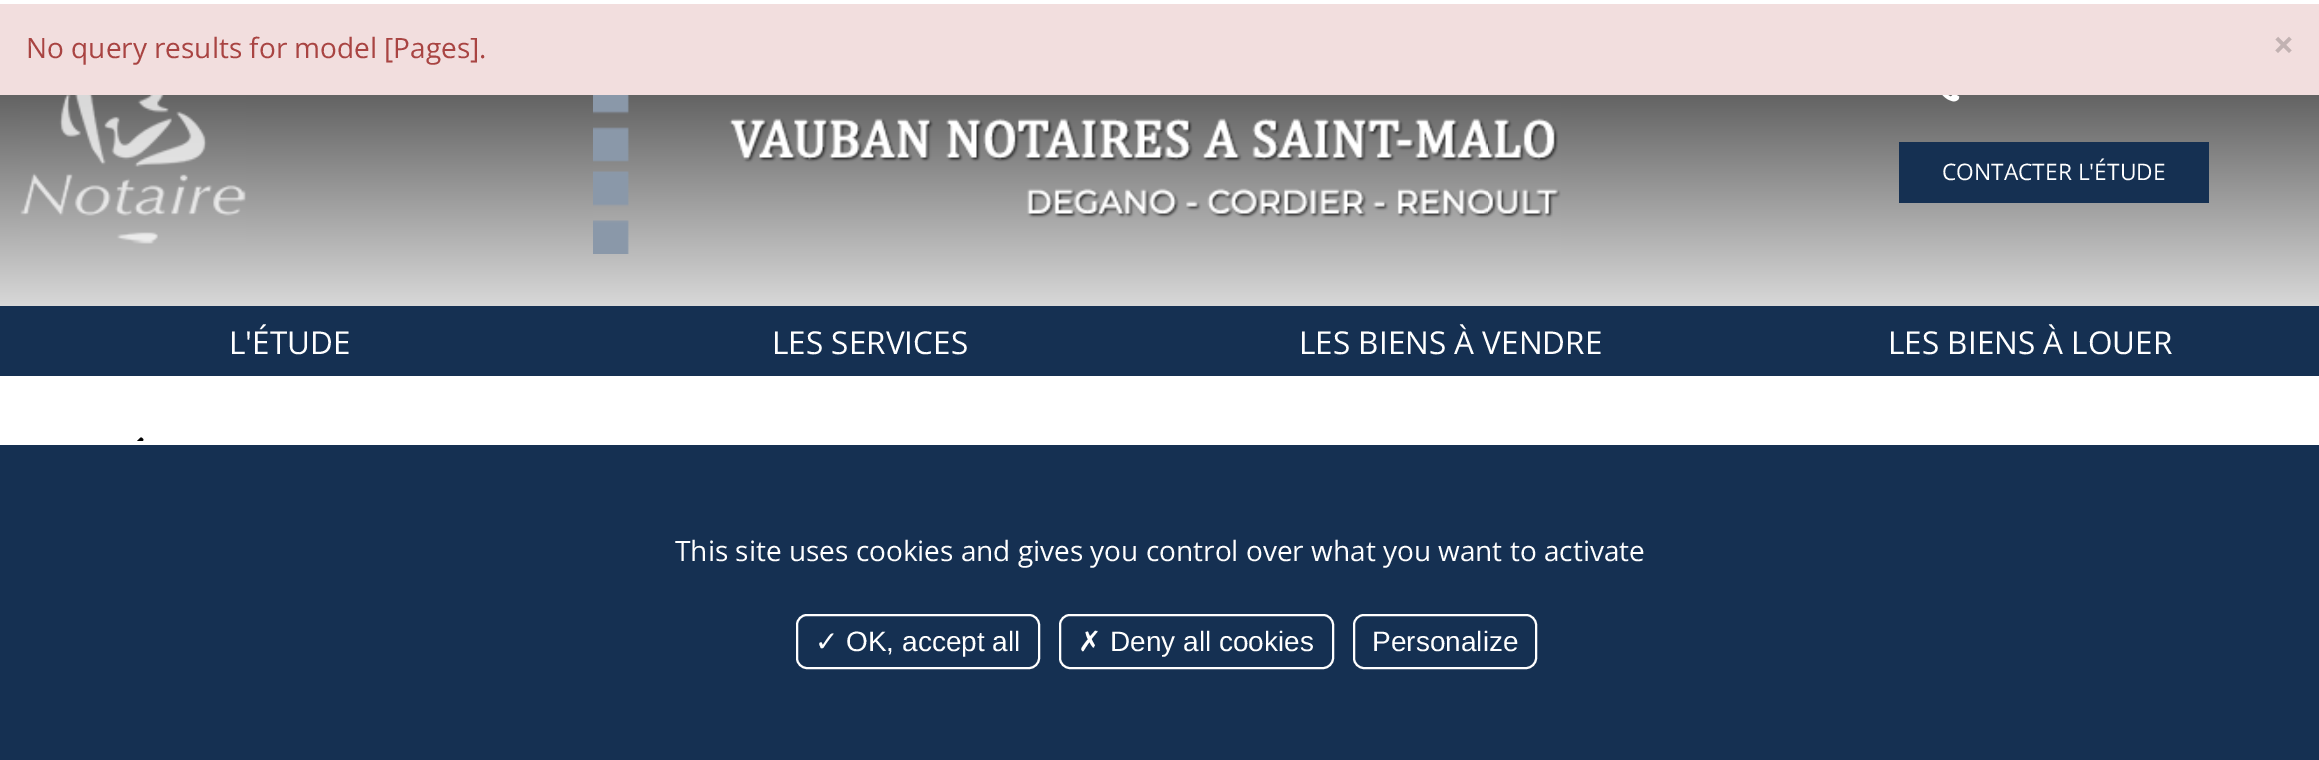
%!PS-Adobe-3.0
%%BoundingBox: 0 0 2319 760
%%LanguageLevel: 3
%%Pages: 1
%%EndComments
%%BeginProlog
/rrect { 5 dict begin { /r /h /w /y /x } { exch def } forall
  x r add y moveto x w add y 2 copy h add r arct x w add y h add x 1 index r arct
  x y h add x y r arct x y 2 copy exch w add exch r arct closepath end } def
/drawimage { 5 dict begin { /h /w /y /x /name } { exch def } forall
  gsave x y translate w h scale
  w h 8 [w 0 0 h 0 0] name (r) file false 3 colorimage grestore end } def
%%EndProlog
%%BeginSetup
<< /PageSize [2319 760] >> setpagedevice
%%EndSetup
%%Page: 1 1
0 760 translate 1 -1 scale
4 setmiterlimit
1 setgray
0 0 2319 760 rectfill
0.949 0.871 0.871 setrgbcolor
0 4 2319 91 rectfill
gsave newpath 0 95 moveto 2319 95 lineto 2319 306 lineto 0 306 lineto closepath clip newpath
<< /ShadingType 2 /ColorSpace /DeviceRGB /Coords [1160 0 1160 376] /Extend [true true] /Function << /FunctionType 2 /Domain [0 1] /C0 [0.18 0.18 0.18] /C1 [1 1 1] /N 1 >> >> shfill grestore
(images/1.raw) 20 95 226 149 drawimage
(images/2.raw) 593 95 968 159 drawimage
(images/3.raw) 1942 95 18 7 drawimage
0.082 0.188 0.322 setrgbcolor
1899 142 310 61 rectfill
0 306 2319 70 rectfill
(images/4.raw) 137 437 7 4 drawimage
0 445 2319 315 rectfill
1 setgray
2 setlinewidth
797 615 242 53 10 rrect stroke
1060 615 273 53 10 rrect stroke
1354 615 182 53 10 rrect stroke
/OpenSans-Regular [28 0 0 -28 0 0] selectfont
0.663 0.267 0.259 setrgbcolor
26 58 moveto (No query results for model [Pages].) show
/OpenSans-Bold [37 0 0 -37 0 0] selectfont
0.761 0.698 0.698 setrgbcolor
2273 58 moveto (×) show
/OpenSans-Regular [22.75 0 0 -22.75 0 0] selectfont
1 setgray
1942 180 moveto (CONTACTER L'ÉTUDE) show
/OpenSans-Regular [31.5 0 0 -31.5 0 0] selectfont
229 354 moveto (L'ÉTUDE) show
772 354 moveto (LES SERVICES) show
1299 354 moveto (LES BIENS À VENDRE) show
1888 354 moveto (LES BIENS À LOUER) show
/OpenSans-Regular [28 0 0 -28 0 0] selectfont
675 561 moveto (This site uses cookies and gives you control over what you want to activate) show
/DejaVuSans-Regular [28 0 0 -28 0 0] selectfont
815 651 moveto (✓) show
/LiberationSans-Regular [28 0 0 -28 0 0] selectfont
846 651 moveto (OK, accept all) show
/DejaVuSans-Regular [28 0 0 -28 0 0] selectfont
1078 651 moveto (✗) show
/LiberationSans-Regular [28 0 0 -28 0 0] selectfont
1110 651 moveto (Deny all cookies) show
1372 651 moveto (Personalize) show
showpage
%%EOF
